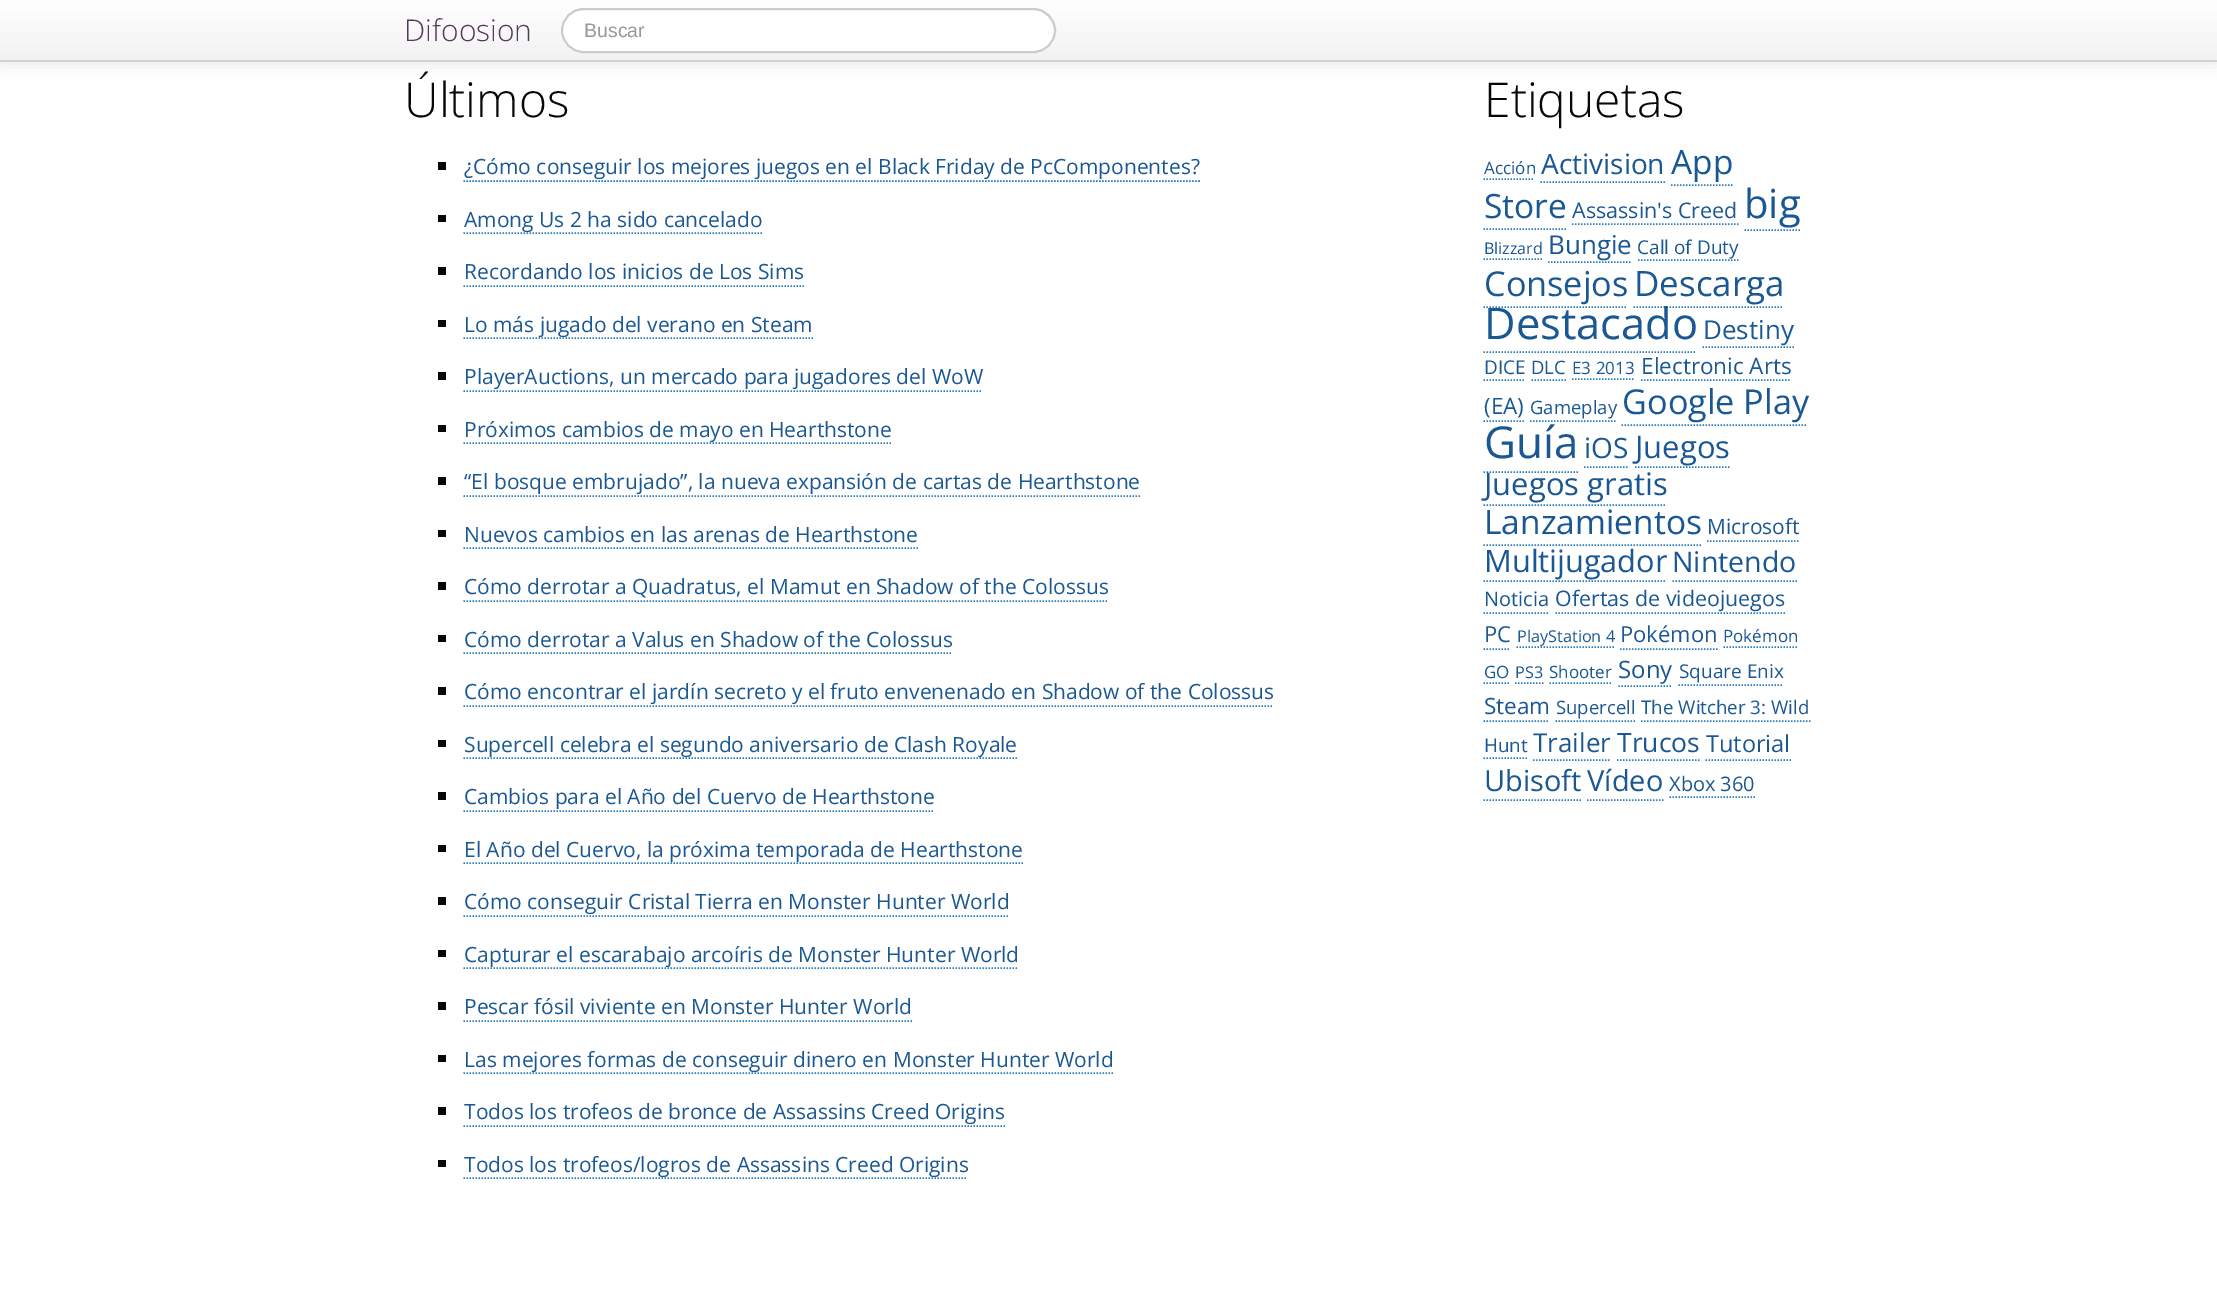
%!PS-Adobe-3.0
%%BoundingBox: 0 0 2217 1301
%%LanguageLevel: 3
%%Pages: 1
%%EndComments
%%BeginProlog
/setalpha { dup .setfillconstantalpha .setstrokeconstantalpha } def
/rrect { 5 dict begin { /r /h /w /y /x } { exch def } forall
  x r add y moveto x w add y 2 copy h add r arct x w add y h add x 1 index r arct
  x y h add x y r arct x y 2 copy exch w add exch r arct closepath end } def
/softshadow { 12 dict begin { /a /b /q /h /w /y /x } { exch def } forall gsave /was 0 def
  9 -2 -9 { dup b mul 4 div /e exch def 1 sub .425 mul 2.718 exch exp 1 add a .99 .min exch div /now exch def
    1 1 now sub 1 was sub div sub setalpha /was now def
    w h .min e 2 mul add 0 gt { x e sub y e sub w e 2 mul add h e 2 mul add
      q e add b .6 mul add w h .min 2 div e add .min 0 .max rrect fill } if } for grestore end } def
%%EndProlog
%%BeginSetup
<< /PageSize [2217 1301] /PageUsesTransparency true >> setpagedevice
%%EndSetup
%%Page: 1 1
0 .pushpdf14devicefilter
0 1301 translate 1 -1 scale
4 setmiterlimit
1 setgray
0 0 2217 1301 rectfill
0 setgray
0 2 2217 61 0 7.5 0.1 softshadow
gsave newpath 0 0 moveto 2217 0 lineto 2217 60 lineto 0 60 lineto closepath clip newpath
<< /ShadingType 2 /ColorSpace /DeviceRGB /Coords [1109 0 1109 60] /Extend [true true] /Function << /FunctionType 2 /Domain [0 1] /C0 [1 1 1] /C1 [0.949 0.949 0.949] /N 1 >> >> shfill grestore
0.831 setgray
0 60 2217 2 rectfill
1 setgray
561 8 495 45 22.5 rrect fill
0.925 setgray
newpath 584 10 moveto 1034 10 lineto 1045 10 1054 20 1054 32 curveto 1054 35 1053 39 1052 41 curveto 1054 38 1055 34 1055 30 curveto 1055 18 1046 9 1034 9 curveto 584 9 lineto 576 9 568 14 565 21 curveto 569 14 576 10 584 10 curveto closepath fill
0.8 setgray
2 setlinewidth
562 9 493 43 21.5 rrect stroke
0.035 0.024 0.012 setrgbcolor
438 162 8 8 rectfill
0.157 0.49 0.741 setrgbcolor
1.5 setlinewidth
[1.5 1.5] 0 setdash
newpath 463.5 181 moveto 1200 181 lineto stroke
0.035 0.024 0.012 setrgbcolor
438 215 8 7 rectfill
0.157 0.49 0.741 setrgbcolor
newpath 463.5 233 moveto 762 233 lineto stroke
0.035 0.024 0.012 setrgbcolor
438 267 8 8 rectfill
0.157 0.49 0.741 setrgbcolor
newpath 463.5 286 moveto 804 286 lineto stroke
0.035 0.024 0.012 setrgbcolor
438 320 8 7 rectfill
0.157 0.49 0.741 setrgbcolor
newpath 463.5 338 moveto 813 338 lineto stroke
0.035 0.024 0.012 setrgbcolor
438 372 8 8 rectfill
0.157 0.49 0.741 setrgbcolor
newpath 463.5 391 moveto 982.5 391 lineto stroke
0.035 0.024 0.012 setrgbcolor
438 425 8 7 rectfill
0.157 0.49 0.741 setrgbcolor
newpath 463.5 443 moveto 891 443 lineto stroke
0.035 0.024 0.012 setrgbcolor
438 477 8 8 rectfill
0.157 0.49 0.741 setrgbcolor
newpath 463.5 496 moveto 1140 496 lineto stroke
0.035 0.024 0.012 setrgbcolor
438 530 8 7 rectfill
0.157 0.49 0.741 setrgbcolor
newpath 463.5 548 moveto 918 548 lineto stroke
0.035 0.024 0.012 setrgbcolor
438 582 8 8 rectfill
0.157 0.49 0.741 setrgbcolor
newpath 463.5 601 moveto 1108.5 601 lineto stroke
0.035 0.024 0.012 setrgbcolor
438 635 8 7 rectfill
0.157 0.49 0.741 setrgbcolor
newpath 463.5 653 moveto 952.5 653 lineto stroke
0.035 0.024 0.012 setrgbcolor
438 687 8 8 rectfill
0.157 0.49 0.741 setrgbcolor
newpath 463.5 706 moveto 1273.5 706 lineto stroke
0.035 0.024 0.012 setrgbcolor
438 740 8 7 rectfill
0.157 0.49 0.741 setrgbcolor
newpath 463.5 758 moveto 1017 758 lineto stroke
0.035 0.024 0.012 setrgbcolor
438 792 8 8 rectfill
0.157 0.49 0.741 setrgbcolor
newpath 463.5 811 moveto 934.5 811 lineto stroke
0.035 0.024 0.012 setrgbcolor
438 845 8 7 rectfill
0.157 0.49 0.741 setrgbcolor
newpath 463.5 863 moveto 1023 863 lineto stroke
0.035 0.024 0.012 setrgbcolor
438 897 8 8 rectfill
0.157 0.49 0.741 setrgbcolor
newpath 463.5 916 moveto 1009.5 916 lineto stroke
0.035 0.024 0.012 setrgbcolor
438 950 8 7 rectfill
0.157 0.49 0.741 setrgbcolor
newpath 463.5 968 moveto 1018.5 968 lineto stroke
0.035 0.024 0.012 setrgbcolor
438 1002 8 8 rectfill
0.157 0.49 0.741 setrgbcolor
newpath 463.5 1021 moveto 912 1021 lineto stroke
0.035 0.024 0.012 setrgbcolor
438 1055 8 7 rectfill
0.157 0.49 0.741 setrgbcolor
newpath 463.5 1073 moveto 1113 1073 lineto stroke
0.035 0.024 0.012 setrgbcolor
438 1107 8 8 rectfill
0.157 0.49 0.741 setrgbcolor
newpath 463.5 1126 moveto 1005 1126 lineto stroke
0.035 0.024 0.012 setrgbcolor
438 1160 8 7 rectfill
0.157 0.49 0.741 setrgbcolor
newpath 463.5 1178 moveto 967.5 1178 lineto stroke
newpath 1483.5 179 moveto 1534.5 179 lineto stroke
newpath 1540.5 182 moveto 1665 182 lineto stroke
newpath 1671 185 moveto 1732.5 185 lineto stroke
newpath 1483.5 229 moveto 1566 229 lineto stroke
newpath 1572 224 moveto 1738.5 224 lineto stroke
newpath 1744.5 230 moveto 1801.5 230 lineto stroke
newpath 1483.5 259 moveto 1542 259 lineto stroke
newpath 1548 262 moveto 1632 262 lineto stroke
newpath 1638 260 moveto 1738.5 260 lineto stroke
newpath 1483.5 307 moveto 1627.5 307 lineto stroke
newpath 1633.5 307 moveto 1783.5 307 lineto stroke
newpath 1483.5 352 moveto 1696.5 352 lineto stroke
newpath 1702.5 347 moveto 1794 347 lineto stroke
newpath 1483.5 380 moveto 1525.5 380 lineto stroke
newpath 1531.5 380 moveto 1566 380 lineto stroke
newpath 1572 379 moveto 1635 379 lineto stroke
newpath 1641 380 moveto 1791 380 lineto stroke
newpath 1483.5 421 moveto 1524 421 lineto stroke
newpath 1530 421 moveto 1615.5 421 lineto stroke
newpath 1621.5 425 moveto 1807.5 425 lineto stroke
newpath 1483.5 472 moveto 1578 472 lineto stroke
newpath 1584 467 moveto 1629 467 lineto stroke
newpath 1635 467 moveto 1731 467 lineto stroke
newpath 1483.5 505 moveto 1666.5 505 lineto stroke
newpath 1483.5 545 moveto 1701 545 lineto stroke
newpath 1707 541 moveto 1800 541 lineto stroke
newpath 1483.5 581 moveto 1666.5 581 lineto stroke
newpath 1672.5 581 moveto 1797 581 lineto stroke
newpath 1483.5 613 moveto 1549.5 613 lineto stroke
newpath 1555.5 613 moveto 1785 613 lineto stroke
newpath 1483.5 649 moveto 1510.5 649 lineto stroke
newpath 1516.5 647 moveto 1614 647 lineto stroke
newpath 1620 649 moveto 1717.5 649 lineto stroke
newpath 1723.5 647 moveto 1798.5 647 lineto stroke
newpath 1483.5 683 moveto 1509 683 lineto stroke
newpath 1515 683 moveto 1543.5 683 lineto stroke
newpath 1549.5 683 moveto 1612.5 683 lineto stroke
newpath 1618.5 686 moveto 1672.5 686 lineto stroke
newpath 1678.5 685 moveto 1783.5 685 lineto stroke
newpath 1483.5 721 moveto 1549.5 721 lineto stroke
newpath 1555.5 721 moveto 1635 721 lineto stroke
newpath 1641 721 moveto 1810.5 721 lineto stroke
newpath 1483.5 758 moveto 1527 758 lineto stroke
newpath 1533 760 moveto 1611 760 lineto stroke
newpath 1617 760 moveto 1699.5 760 lineto stroke
newpath 1705.5 760 moveto 1791 760 lineto stroke
newpath 1483.5 800 moveto 1581 800 lineto stroke
newpath 1587 800 moveto 1663.5 800 lineto stroke
newpath 1669.5 797 moveto 1756.5 797 lineto stroke
/OpenSans-Light [30 0 0 -30 0 0] selectfont
0.329 0.227 0.349 setrgbcolor
404 41 moveto (Difoosion) show
/LiberationSans-Regular [19.5 0 0 -19.5 0 0] selectfont
0.6 setgray
584 37 moveto (Buscar) show
/OpenSans-Light [48 0 0 -48 0 0] selectfont
0.035 0.024 0.012 setrgbcolor
404 117 moveto (Últimos) show
/OpenSans-Regular [21 0 0 -21 0 0] selectfont
0.102 0.345 0.576 setrgbcolor
464 174 moveto (¿Cómo conseguir los mejores juegos en el Black Friday de PcComponentes?) show
464 227 moveto (Among Us 2 ha sido cancelado) show
464 279 moveto (Recordando los inicios de Los Sims) show
464 332 moveto (Lo más jugado del verano en Steam) show
464 384 moveto (PlayerAuctions, un mercado para jugadores del WoW) show
464 437 moveto (Próximos cambios de mayo en Hearthstone) show
464 489 moveto (“El bosque embrujado”, la nueva expansión de cartas de Hearthstone) show
464 542 moveto (Nuevos cambios en las arenas de Hearthstone) show
464 594 moveto (Cómo derrotar a Quadratus, el Mamut en Shadow of the Colossus) show
464 647 moveto (Cómo derrotar a Valus en Shadow of the Colossus) show
464 699 moveto (Cómo encontrar el jardín secreto y el fruto envenenado en Shadow of the Colossus) show
464 752 moveto (Supercell celebra el segundo aniversario de Clash Royale) show
464 804 moveto (Cambios para el Año del Cuervo de Hearthstone) show
464 857 moveto (El Año del Cuervo, la próxima temporada de Hearthstone) show
464 909 moveto (Cómo conseguir Cristal Tierra en Monster Hunter World) show
464 962 moveto (Capturar el escarabajo arcoíris de Monster Hunter World) show
464 1014 moveto (Pescar fósil viviente en Monster Hunter World) show
464 1067 moveto (Las mejores formas de conseguir dinero en Monster Hunter World) show
464 1119 moveto (Todos los trofeos de bronce de Assassins Creed Origins) show
464 1172 moveto (Todos los trofeos/logros de Assassins Creed Origins) show
/OpenSans-Light [48 0 0 -48 0 0] selectfont
0.035 0.024 0.012 setrgbcolor
1484 117 moveto (Etiquetas) show
/OpenSans-Regular [17 0 0 -17 0 0] selectfont
0.102 0.345 0.576 setrgbcolor
1484 174 moveto (Acción) show
/OpenSans-Regular [28 0 0 -28 0 0] selectfont
1541 174 moveto (Activision) show
/OpenSans-Regular [33.5 0 0 -33.5 0 0] selectfont
1671 174 moveto (App) show
1484 218 moveto (Store) show
/OpenSans-Regular [21.5 0 0 -21.5 0 0] selectfont
1572 218 moveto (Assassin's Creed) show
/OpenSans-Regular [40 0 0 -40 0 0] selectfont
1744 218 moveto (big) show
/OpenSans-Regular [16 0 0 -16 0 0] selectfont
1484 254 moveto (Blizzard) show
/OpenSans-Regular [26 0 0 -26 0 0] selectfont
1548 254 moveto (Bungie) show
/OpenSans-Regular [19 0 0 -19 0 0] selectfont
1637 254 moveto (Call of Duty) show
/OpenSans-Regular [34.25 0 0 -34.25 0 0] selectfont
1484 296 moveto (Consejos) show
/OpenSans-Regular [35 0 0 -35 0 0] selectfont
1634 296 moveto (Descarga) show
/OpenSans-Regular [43.5 0 0 -43.5 0 0] selectfont
1484 339 moveto (Destacado) show
/OpenSans-Regular [26 0 0 -26 0 0] selectfont
1703 339 moveto (Destiny) show
/OpenSans-Regular [19 0 0 -19 0 0] selectfont
1484 374 moveto (DICE) show
/OpenSans-Regular [18.5 0 0 -18.5 0 0] selectfont
1531 374 moveto (DLC) show
/OpenSans-Regular [17 0 0 -17 0 0] selectfont
1572 374 moveto (E3 2013) show
/OpenSans-Regular [22.5 0 0 -22.5 0 0] selectfont
1641 374 moveto (Electronic Arts) show
1484 414 moveto (\(EA\)) show
/OpenSans-Regular [18.5 0 0 -18.5 0 0] selectfont
1530 414 moveto (Gameplay) show
/OpenSans-Regular [34.25 0 0 -34.25 0 0] selectfont
1622 414 moveto (Google Play) show
/OpenSans-Regular [44 0 0 -44 0 0] selectfont
1484 458 moveto (Guía) show
/OpenSans-Regular [28 0 0 -28 0 0] selectfont
1584 458 moveto (iOS) show
/OpenSans-Regular [31 0 0 -31 0 0] selectfont
1635 458 moveto (Juegos) show
1484 495 moveto (Juegos gratis) show
/OpenSans-Regular [33.5 0 0 -33.5 0 0] selectfont
1484 534 moveto (Lanzamientos) show
/OpenSans-Regular [21 0 0 -21 0 0] selectfont
1707 534 moveto (Microsoft) show
/OpenSans-Regular [30.75 0 0 -30.75 0 0] selectfont
1484 572 moveto (Multijugador) show
/OpenSans-Regular [28.5 0 0 -28.5 0 0] selectfont
1672 572 moveto (Nintendo) show
/OpenSans-Regular [20 0 0 -20 0 0] selectfont
1484 606 moveto (Noticia) show
/OpenSans-Regular [21.4 0 0 -21.4 0 0] selectfont
1555 606 moveto (Ofertas de videojuegos) show
/OpenSans-Regular [22 0 0 -22 0 0] selectfont
1484 642 moveto (PC) show
/OpenSans-Regular [16.25 0 0 -16.25 0 0] selectfont
1517 642 moveto (PlayStation 4) show
/OpenSans-Regular [22 0 0 -22 0 0] selectfont
1620 642 moveto (Pokémon) show
/OpenSans-Regular [17 0 0 -17 0 0] selectfont
1723 642 moveto (Pokémon) show
1484 678 moveto (GO) show
/OpenSans-Regular [16.25 0 0 -16.25 0 0] selectfont
1515 678 moveto (PS3) show
/OpenSans-Regular [17 0 0 -17 0 0] selectfont
1549 678 moveto (Shooter) show
/OpenSans-Regular [24 0 0 -24 0 0] selectfont
1618 678 moveto (Sony) show
/OpenSans-Regular [19 0 0 -19 0 0] selectfont
1679 678 moveto (Square Enix) show
/OpenSans-Regular [22.5 0 0 -22.5 0 0] selectfont
1484 714 moveto (Steam) show
/OpenSans-Regular [18.5 0 0 -18.5 0 0] selectfont
1556 714 moveto (Supercell) show
/OpenSans-Regular [18.75 0 0 -18.75 0 0] selectfont
1641 714 moveto (The Witcher 3: Wild) show
1484 752 moveto (Hunt) show
/OpenSans-Regular [26 0 0 -26 0 0] selectfont
1533 752 moveto (Trailer) show
/OpenSans-Regular [26.5 0 0 -26.5 0 0] selectfont
1617 752 moveto (Trucos) show
/OpenSans-Regular [23.5 0 0 -23.5 0 0] selectfont
1706 752 moveto (Tutorial) show
/OpenSans-Regular [29 0 0 -29 0 0] selectfont
1484 791 moveto (Ubisoft) show
1587 791 moveto (Vídeo) show
/OpenSans-Regular [20 0 0 -20 0 0] selectfont
1669 791 moveto (Xbox 360) show
.poppdf14devicefilter showpage
%%EOF
